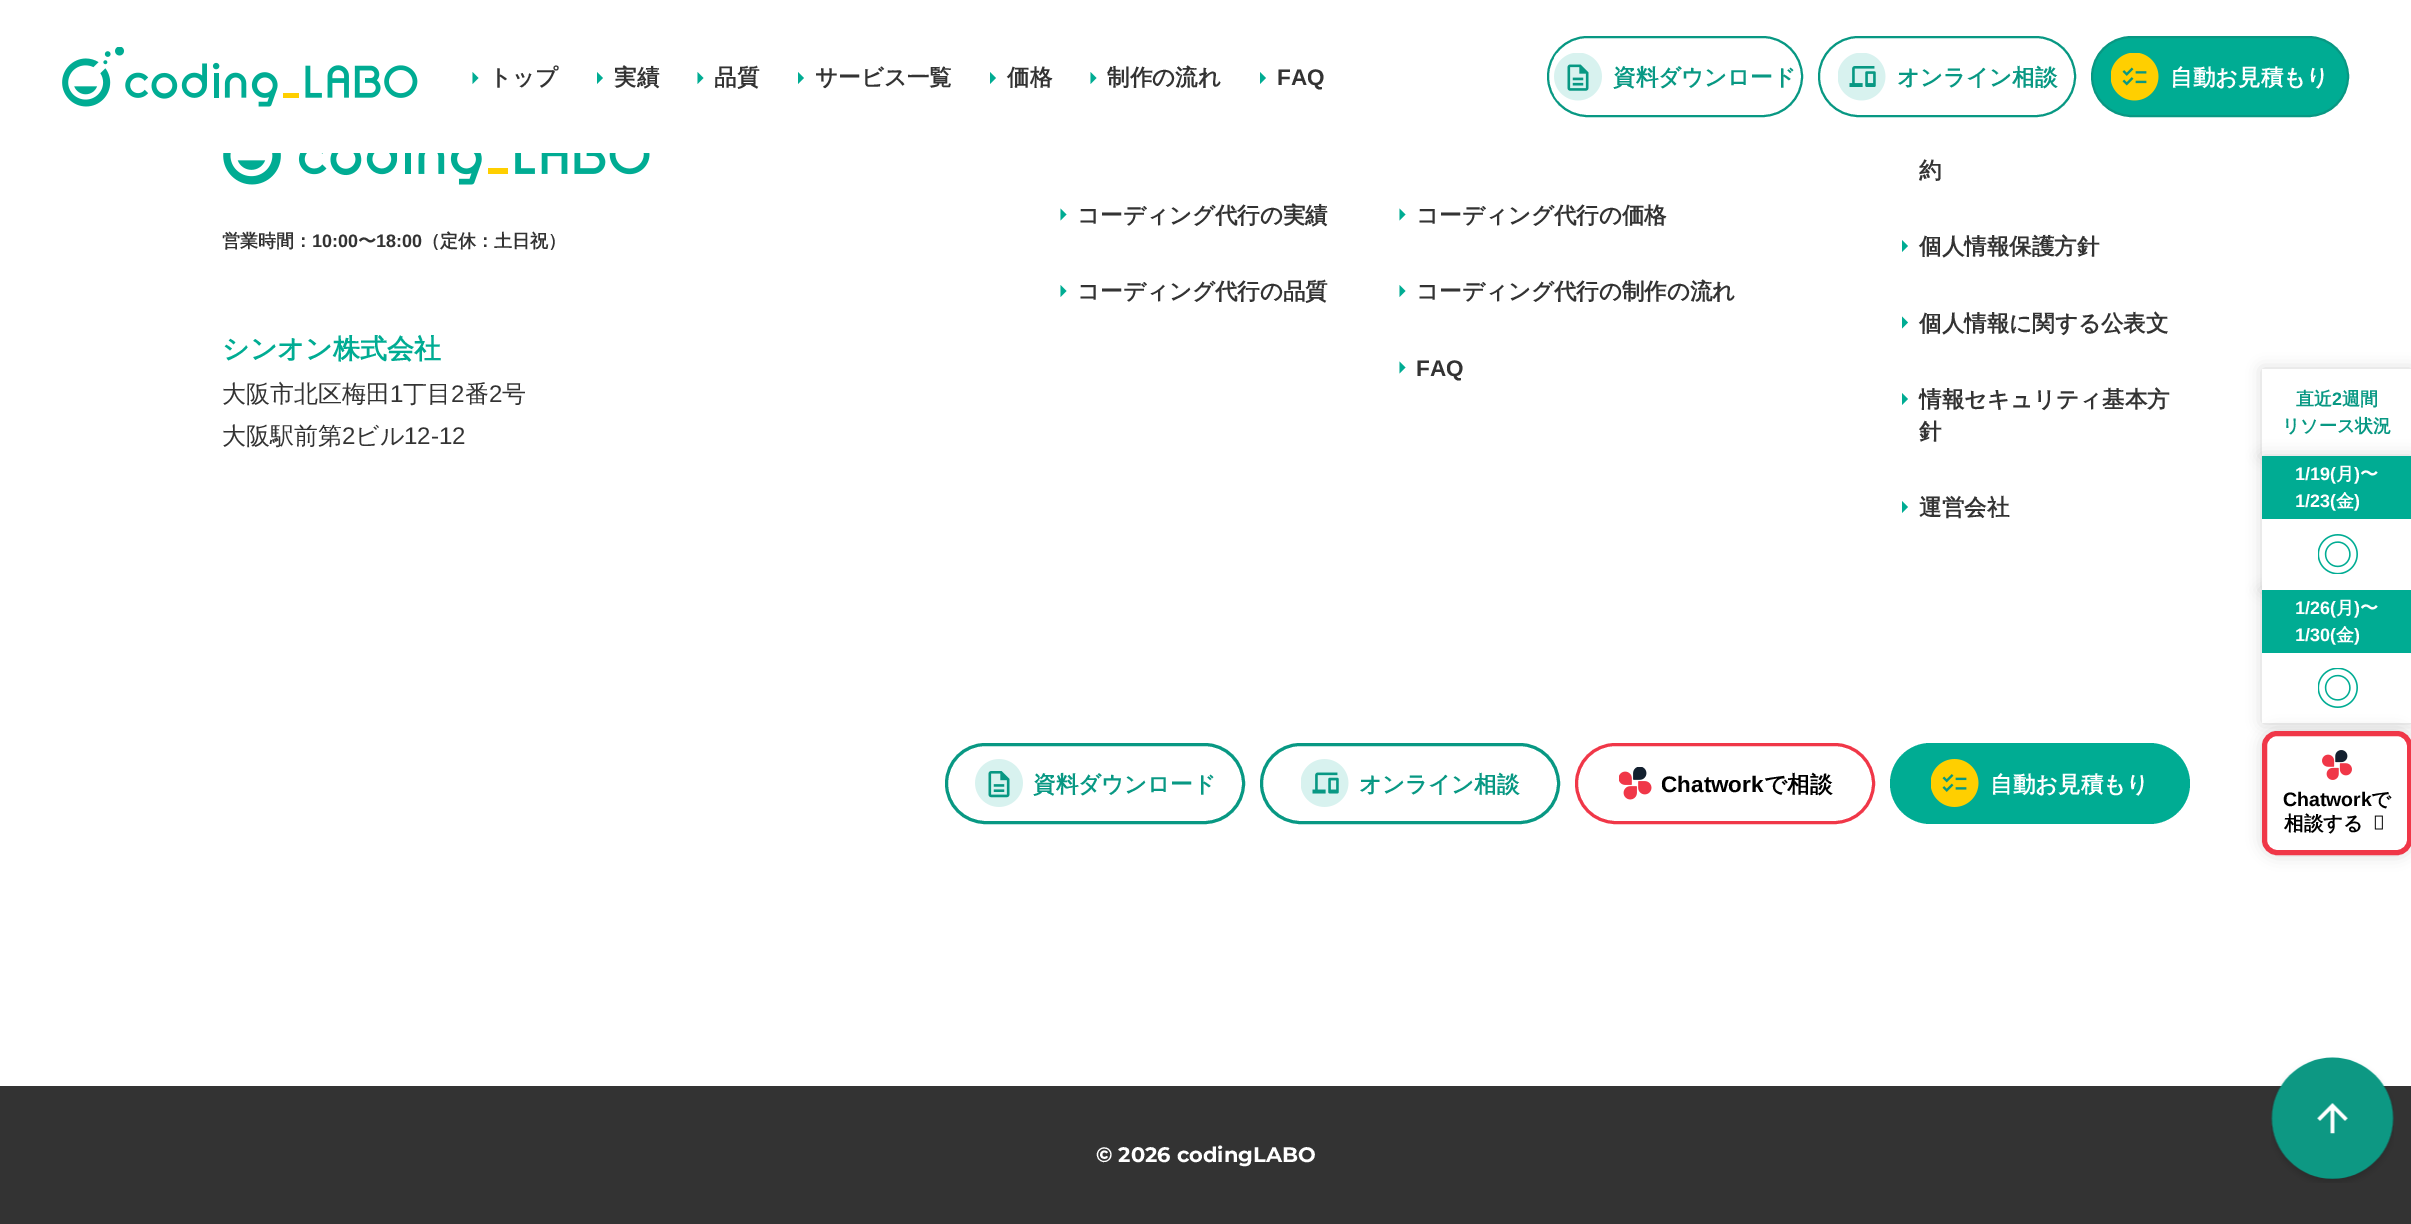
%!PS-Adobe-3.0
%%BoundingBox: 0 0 2411 1224
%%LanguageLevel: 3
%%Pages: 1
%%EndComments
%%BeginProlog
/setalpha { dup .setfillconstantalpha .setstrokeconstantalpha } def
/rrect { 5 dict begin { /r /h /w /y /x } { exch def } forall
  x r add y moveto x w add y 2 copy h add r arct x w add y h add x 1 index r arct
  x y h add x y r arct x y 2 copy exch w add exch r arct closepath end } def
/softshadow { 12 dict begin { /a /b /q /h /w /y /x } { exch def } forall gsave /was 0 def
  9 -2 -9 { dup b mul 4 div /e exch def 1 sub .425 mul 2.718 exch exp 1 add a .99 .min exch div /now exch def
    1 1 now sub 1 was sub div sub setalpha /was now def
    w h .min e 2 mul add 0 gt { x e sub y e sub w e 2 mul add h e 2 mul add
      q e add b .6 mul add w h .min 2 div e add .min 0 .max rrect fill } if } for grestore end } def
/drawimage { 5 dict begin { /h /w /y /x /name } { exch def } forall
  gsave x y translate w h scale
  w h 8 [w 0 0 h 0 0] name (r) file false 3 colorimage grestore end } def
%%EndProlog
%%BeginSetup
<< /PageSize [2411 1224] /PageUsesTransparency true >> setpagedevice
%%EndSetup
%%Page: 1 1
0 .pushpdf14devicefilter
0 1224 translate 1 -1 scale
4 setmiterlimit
1 setgray
0 0 2411 1224 rectfill
(images/1.raw) 62 47 356 60 drawimage
0 0.675 0.576 setrgbcolor
newpath 472.5 84 moveto 472.5 72 lineto 478.5 78 lineto closepath fill
newpath 597 84 moveto 597 72 lineto 603 78 lineto closepath fill
newpath 697.5 84 moveto 697.5 72 lineto 703.5 78 lineto closepath fill
newpath 798 84 moveto 798 72 lineto 804 78 lineto closepath fill
newpath 990 84 moveto 990 72 lineto 996 78 lineto closepath fill
newpath 1090.5 84 moveto 1090.5 72 lineto 1096.5 78 lineto closepath fill
newpath 1260 84 moveto 1260 72 lineto 1266 78 lineto closepath fill
0.031 0.596 0.514 setrgbcolor
2 setlinewidth
1548 37 254 79 39.5 rrect stroke
(images/2.raw) 1554 53 48 48 drawimage
1819 37 256 79 39.5 rrect stroke
(images/3.raw) 1838 53 48 48 drawimage
0 0.675 0.576 setrgbcolor
2092 37 256 79 39.5 rrect gsave fill grestore
0.031 0.596 0.514 setrgbcolor
stroke
(images/4.raw) 2111 53 48 48 drawimage
(images/5.raw) 223 153 427 32 drawimage
0 0.675 0.576 setrgbcolor
newpath 1060.5 220.5 moveto 1060.5 208.5 lineto 1066.5 214.5 lineto closepath fill
newpath 1060.5 297 moveto 1060.5 285 lineto 1066.5 291 lineto closepath fill
newpath 1399.5 220.5 moveto 1399.5 208.5 lineto 1405.5 214.5 lineto closepath fill
newpath 1399.5 297 moveto 1399.5 285 lineto 1405.5 291 lineto closepath fill
newpath 1399.5 373.5 moveto 1399.5 361.5 lineto 1405.5 367.5 lineto closepath fill
newpath 1902 252 moveto 1902 240 lineto 1908 246 lineto closepath fill
newpath 1902 328.5 moveto 1902 316.5 lineto 1908 322.5 lineto closepath fill
newpath 1902 405 moveto 1902 393 lineto 1908 399 lineto closepath fill
newpath 1902 513 moveto 1902 501 lineto 1908 507 lineto closepath fill
0.031 0.596 0.514 setrgbcolor
3 setlinewidth
946.5 744.5 297 78 39 rrect stroke
(images/6.raw) 975 759 48 48 drawimage
1261.5 744.5 297 78 39 rrect stroke
(images/7.raw) 1301 759 48 48 drawimage
0.941 0.216 0.282 setrgbcolor
1576.5 744.5 297 78 39 rrect stroke
(images/8.raw) 1619 767 33 33 drawimage
0 0.675 0.576 setrgbcolor
1890 743 300 81 40.5 rrect fill
(images/9.raw) 1931 759 48 48 drawimage
0.2 setgray
0 1086 2411 138 rectfill
(images/10.raw) 2271 1057 123 126 drawimage
gsave
newpath 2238 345 moveto 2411 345 lineto 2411 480 lineto 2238 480 lineto closepath 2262 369 moveto 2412 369 lineto 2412 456 lineto 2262 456 lineto closepath eoclip newpath
0 setgray
2262 369 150 87 0 7.5 0.16 softshadow
grestore
0 setgray
2262 456 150 134 0 7.5 0.16 softshadow
0 0.675 0.576 setrgbcolor
2262 456 149 63 rectfill
0 setgray
2262 590 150 133 0 7.5 0.16 softshadow
1 setgray
2262 519 149 71 rectfill
(images/11.raw) 2318 534 40 40 drawimage
0 0.675 0.576 setrgbcolor
2262 590 149 63 rectfill
1 setgray
2262 653 149 70 rectfill
(images/12.raw) 2318 668 40 40 drawimage
0 setgray
2262 731 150 124 15 7.5 0.16 softshadow
1 setgray
2264.5 733.5 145 119 12.5 rrect gsave fill grestore
0.941 0.216 0.282 setrgbcolor
5 setlinewidth
stroke
(images/13.raw) 2322 750 30 30 drawimage
(images/14.raw) 2374 815 9 15 drawimage
/WenQuanYiZenHei-Bold [22.5 0 0 -22.5 0 0] selectfont
0.2 setgray
489 85 moveto (トップ) show
614 85 moveto (実績) show
714 85 moveto (品質) show
815 85 moveto (サービス一覧) show
1007 85 moveto (価格) show
1107 85 moveto (制作の流れ) show
/LiberationSans-Bold [22.5 0 0 -22.5 0 0] selectfont
1277 85 moveto (FAQ) show
/WenQuanYiZenHei-Bold [22.5 0 0 -22.5 0 0] selectfont
0.031 0.596 0.514 setrgbcolor
1613 85 moveto (資料ダウンロード) show
1897 85 moveto (オンライン相談) show
1 setgray
2170 85 moveto (自動お見積もり) show
/WenQuanYiZenHei-Bold [18 0 0 -18 0 0] selectfont
0.2 setgray
222 247 moveto (営業時間：) show
/LiberationSans-Bold [18 0 0 -18 0 0] selectfont
312 247 moveto (10:00) show
/WenQuanYiZenHei-Bold [18 0 0 -18 0 0] selectfont
358 247 moveto (〜) show
/LiberationSans-Bold [18 0 0 -18 0 0] selectfont
376 247 moveto (18:00) show
/WenQuanYiZenHei-Bold [18 0 0 -18 0 0] selectfont
422 247 moveto (（定休：土日祝）) show
/WenQuanYiZenHei-Bold [27 0 0 -27 0 0] selectfont
0 0.675 0.576 setrgbcolor
222 358 moveto (シンオン株式会社) show
/WenQuanYiZenHei-Medium [24 0 0 -24 0 0] selectfont
0.2 setgray
222 402 moveto (大阪市北区梅田) show
/LiberationSans-Regular [24 0 0 -24 0 0] selectfont
390 402 moveto (1) show
/WenQuanYiZenHei-Medium [24 0 0 -24 0 0] selectfont
403 402 moveto (丁目) show
/LiberationSans-Regular [24 0 0 -24 0 0] selectfont
451 402 moveto (2) show
/WenQuanYiZenHei-Medium [24 0 0 -24 0 0] selectfont
465 402 moveto (番) show
/LiberationSans-Regular [24 0 0 -24 0 0] selectfont
489 402 moveto (2) show
/WenQuanYiZenHei-Medium [24 0 0 -24 0 0] selectfont
502 402 moveto (号) show
222 444 moveto (大阪駅前第) show
/LiberationSans-Regular [24 0 0 -24 0 0] selectfont
342 444 moveto (2) show
/WenQuanYiZenHei-Medium [24 0 0 -24 0 0] selectfont
355 444 moveto (ビル) show
/LiberationSans-Regular [24 0 0 -24 0 0] selectfont
404 444 moveto (12-12) show
/WenQuanYiZenHei-Bold [22.5 0 0 -22.5 0 0] selectfont
1077 223 moveto (コーディング代行の実績) show
1077 299 moveto (コーディング代行の品質) show
1416 223 moveto (コーディング代行の価格) show
1416 299 moveto (コーディング代行の制作の流れ) show
/LiberationSans-Bold [22.5 0 0 -22.5 0 0] selectfont
1416 376 moveto (FAQ) show
/WenQuanYiZenHei-Bold [22.5 0 0 -22.5 0 0] selectfont
1919 178 moveto (約) show
1919 254 moveto (個人情報保護方針) show
1919 331 moveto (個人情報に関する公表文) show
1919 407 moveto (情報セキュリティ基本方) show
1919 439 moveto (針) show
1919 515 moveto (運営会社) show
0.031 0.596 0.514 setrgbcolor
1033 792 moveto (資料ダウンロード) show
1359 792 moveto (オンライン相談) show
/LiberationSans-Bold [22.5 0 0 -22.5 0 0] selectfont
0 setgray
1661 792 moveto (Chatwork) show
/WenQuanYiZenHei-Bold [22.5 0 0 -22.5 0 0] selectfont
1764 792 moveto (で相談) show
1 setgray
1990 792 moveto (自動お見積もり) show
/Montserrat-Bold [21 0 0 -21 0 0] selectfont
1096 1162 moveto (© 2026 codingLABO) show
/WenQuanYiZenHei-Bold [18 0 0 -18 0 0] selectfont
0.031 0.596 0.514 setrgbcolor
2296 405 moveto (直近) show
/LiberationSans-Bold [18 0 0 -18 0 0] selectfont
2332 405 moveto (2) show
/WenQuanYiZenHei-Bold [18 0 0 -18 0 0] selectfont
2342 405 moveto (週間) show
2282 432 moveto (リソース状況) show
/LiberationSans-Bold [18 0 0 -18 0 0] selectfont
1 setgray
2295 480 moveto (1/19\() show
/WenQuanYiZenHei-Bold [18 0 0 -18 0 0] selectfont
2336 480 moveto (月) show
/LiberationSans-Bold [18 0 0 -18 0 0] selectfont
2354 480 moveto (\)) show
/WenQuanYiZenHei-Bold [18 0 0 -18 0 0] selectfont
2360 480 moveto (〜) show
/LiberationSans-Bold [18 0 0 -18 0 0] selectfont
2295 507 moveto (1/23\() show
/WenQuanYiZenHei-Bold [18 0 0 -18 0 0] selectfont
2336 507 moveto (金) show
/LiberationSans-Bold [18 0 0 -18 0 0] selectfont
2354 507 moveto (\)) show
2295 614 moveto (1/26\() show
/WenQuanYiZenHei-Bold [18 0 0 -18 0 0] selectfont
2336 614 moveto (月) show
/LiberationSans-Bold [18 0 0 -18 0 0] selectfont
2354 614 moveto (\)) show
/WenQuanYiZenHei-Bold [18 0 0 -18 0 0] selectfont
2360 614 moveto (〜) show
/LiberationSans-Bold [18 0 0 -18 0 0] selectfont
2295 641 moveto (1/30\() show
/WenQuanYiZenHei-Bold [18 0 0 -18 0 0] selectfont
2336 641 moveto (金) show
/LiberationSans-Bold [18 0 0 -18 0 0] selectfont
2354 641 moveto (\)) show
/LiberationSans-Bold [19.5 0 0 -19.5 0 0] selectfont
0 setgray
2283 806 moveto (Chatwork) show
/WenQuanYiZenHei-Bold [19.5 0 0 -19.5 0 0] selectfont
2371 806 moveto (で) show
2284 830 moveto (相談する) show
.poppdf14devicefilter showpage
%%EOF
